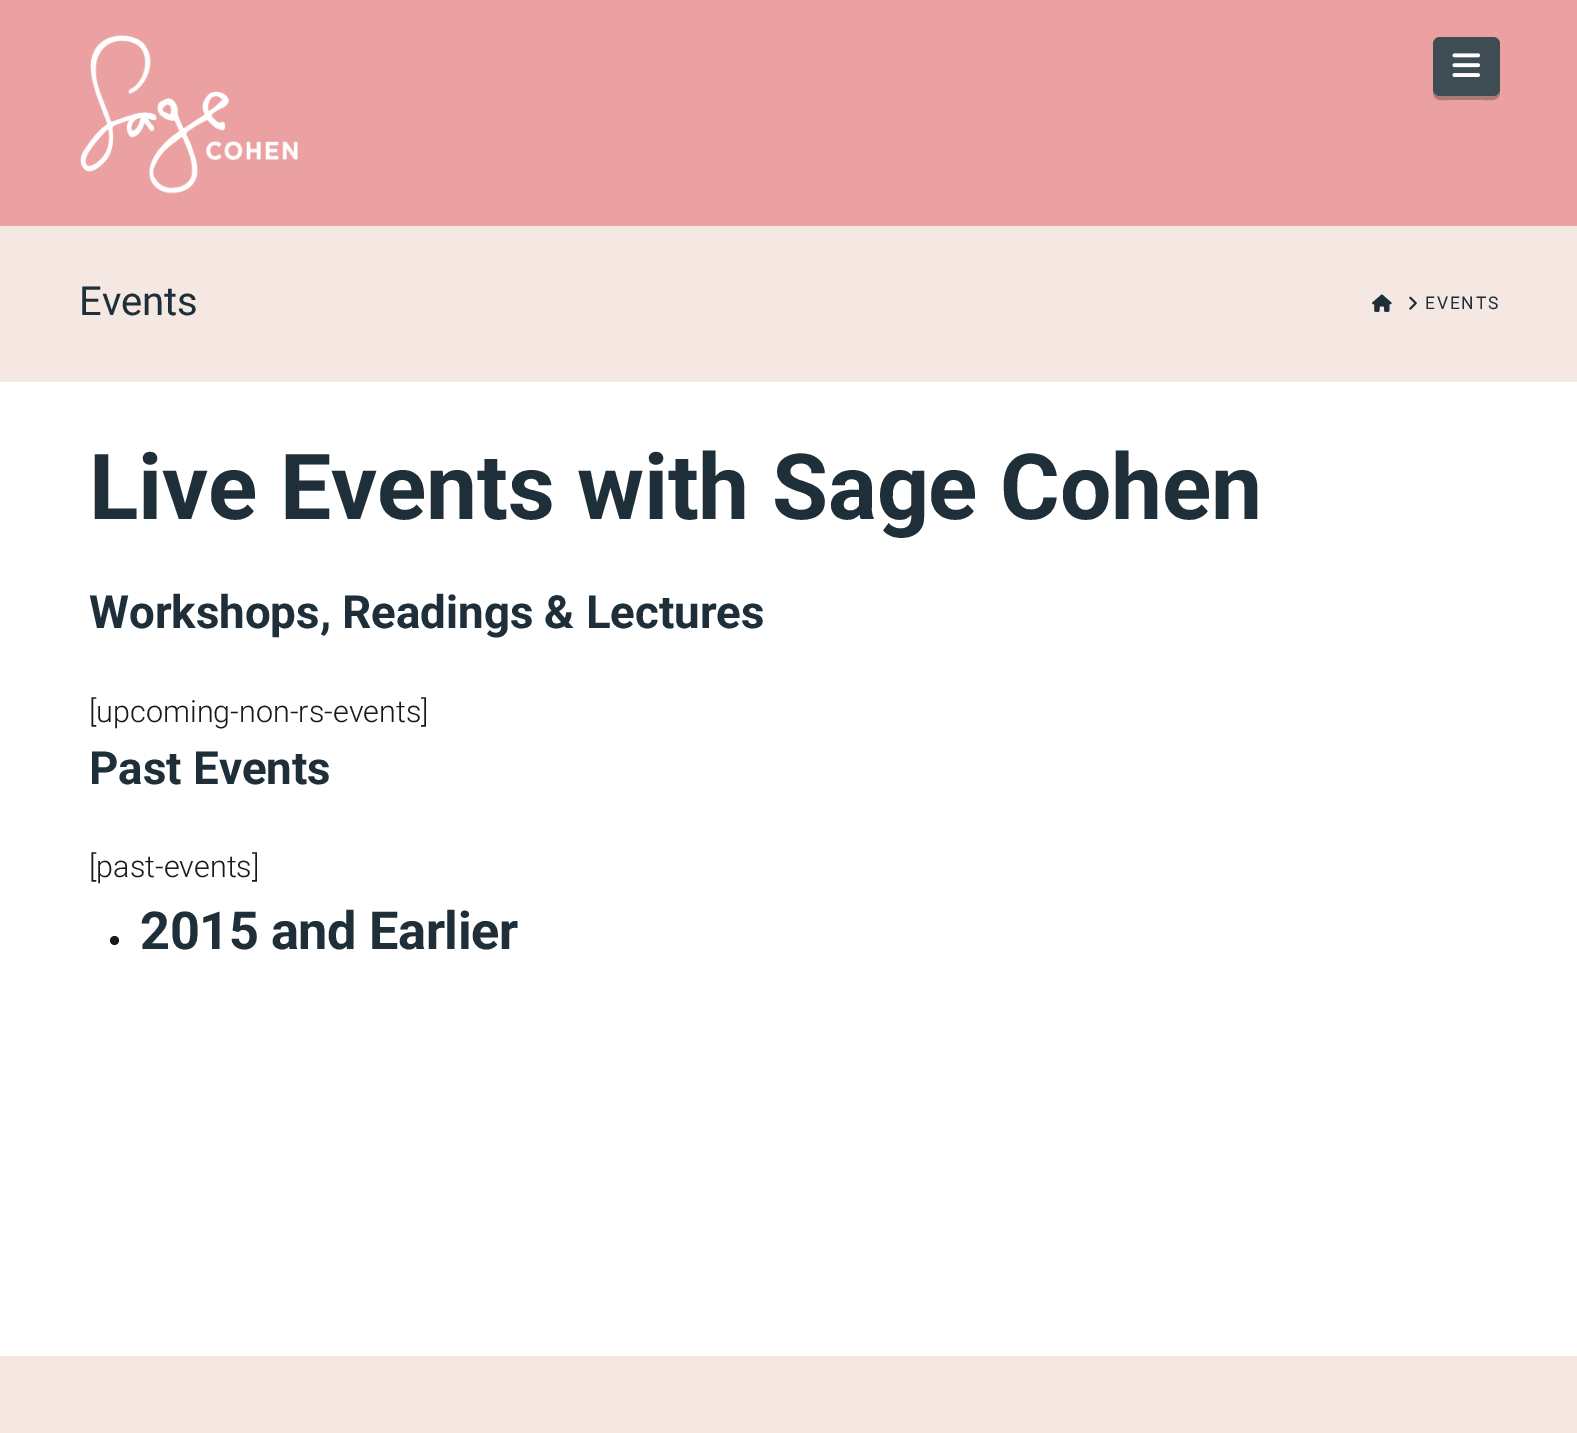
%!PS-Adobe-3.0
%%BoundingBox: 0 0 1577 1433
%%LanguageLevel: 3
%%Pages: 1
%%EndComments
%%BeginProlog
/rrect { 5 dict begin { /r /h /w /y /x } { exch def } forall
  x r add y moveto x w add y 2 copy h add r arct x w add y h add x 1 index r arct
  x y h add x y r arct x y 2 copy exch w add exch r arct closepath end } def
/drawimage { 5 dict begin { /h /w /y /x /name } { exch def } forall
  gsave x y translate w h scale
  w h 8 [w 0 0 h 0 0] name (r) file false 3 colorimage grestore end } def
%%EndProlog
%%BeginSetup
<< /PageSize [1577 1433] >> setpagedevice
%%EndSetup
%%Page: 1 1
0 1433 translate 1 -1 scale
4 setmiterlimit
1 setgray
0 0 1577 1433 rectfill
0.922 0.631 0.631 setrgbcolor
0 0 1577 226 rectfill
(images/1.raw) 80 35 218 159 drawimage
0.69 0.475 0.475 setrgbcolor
newpath 1433 45 moveto 1433 94 lineto 1435 102 1444 100 1449 100 curveto 1484 100 lineto 1489 100 1498 102 1500 94 curveto 1500 45 lineto 1500 89 lineto 1500 93 1497 96 1493 96 curveto 1440 96 lineto 1436 96 1433 93 1433 89 curveto closepath fill
0.243 0.298 0.329 setrgbcolor
1433 37 67 59 7 rrect fill
(images/2.raw) 1452 53 29 24 drawimage
0.961 0.91 0.89 setrgbcolor
0 226 1577 156 rectfill
(images/3.raw) 1372 294 20 18 drawimage
(images/4.raw) 1409 296 8 14 drawimage
0.098 setgray
newpath 114.5 940.5 4.5 0 360 arc closepath fill
0.961 0.91 0.89 setrgbcolor
0 1356 1577 77 rectfill
/Roboto-Regular [40 0 0 -40 0 0] selectfont
0.118 0.184 0.224 setrgbcolor
79 315 moveto (Events) show
/Roboto-Regular [17.5 0 0 -17.5 0 0] selectfont
1425 309 moveto 1.75 0 (EVENTS) ashow
/Roboto-Bold [91.3 0 0 -91.3 0 0] selectfont
89 519 moveto -0.2 0 (Live Events with Sage Cohen) ashow
/Roboto-Bold [45.7 0 0 -45.7 0 0] selectfont
89 628 moveto -0.05 0 (Workshops, Readings & Lectures) ashow
/Roboto-Light [30.5 0 0 -30.5 0 0] selectfont
0.098 setgray
89 722 moveto ([upcoming-non-rs-events]) show
/Roboto-Bold [45.7 0 0 -45.7 0 0] selectfont
0.118 0.184 0.224 setrgbcolor
89 784 moveto -0.05 0 (Past Events) ashow
/Roboto-Light [30.5 0 0 -30.5 0 0] selectfont
0.098 setgray
89 877 moveto ([past-events]) show
/Roboto-Bold [52.25 0 0 -52.25 0 0] selectfont
0.118 0.184 0.224 setrgbcolor
140 949 moveto -0.4 0 (2015 and Earlier) ashow
showpage
%%EOF
